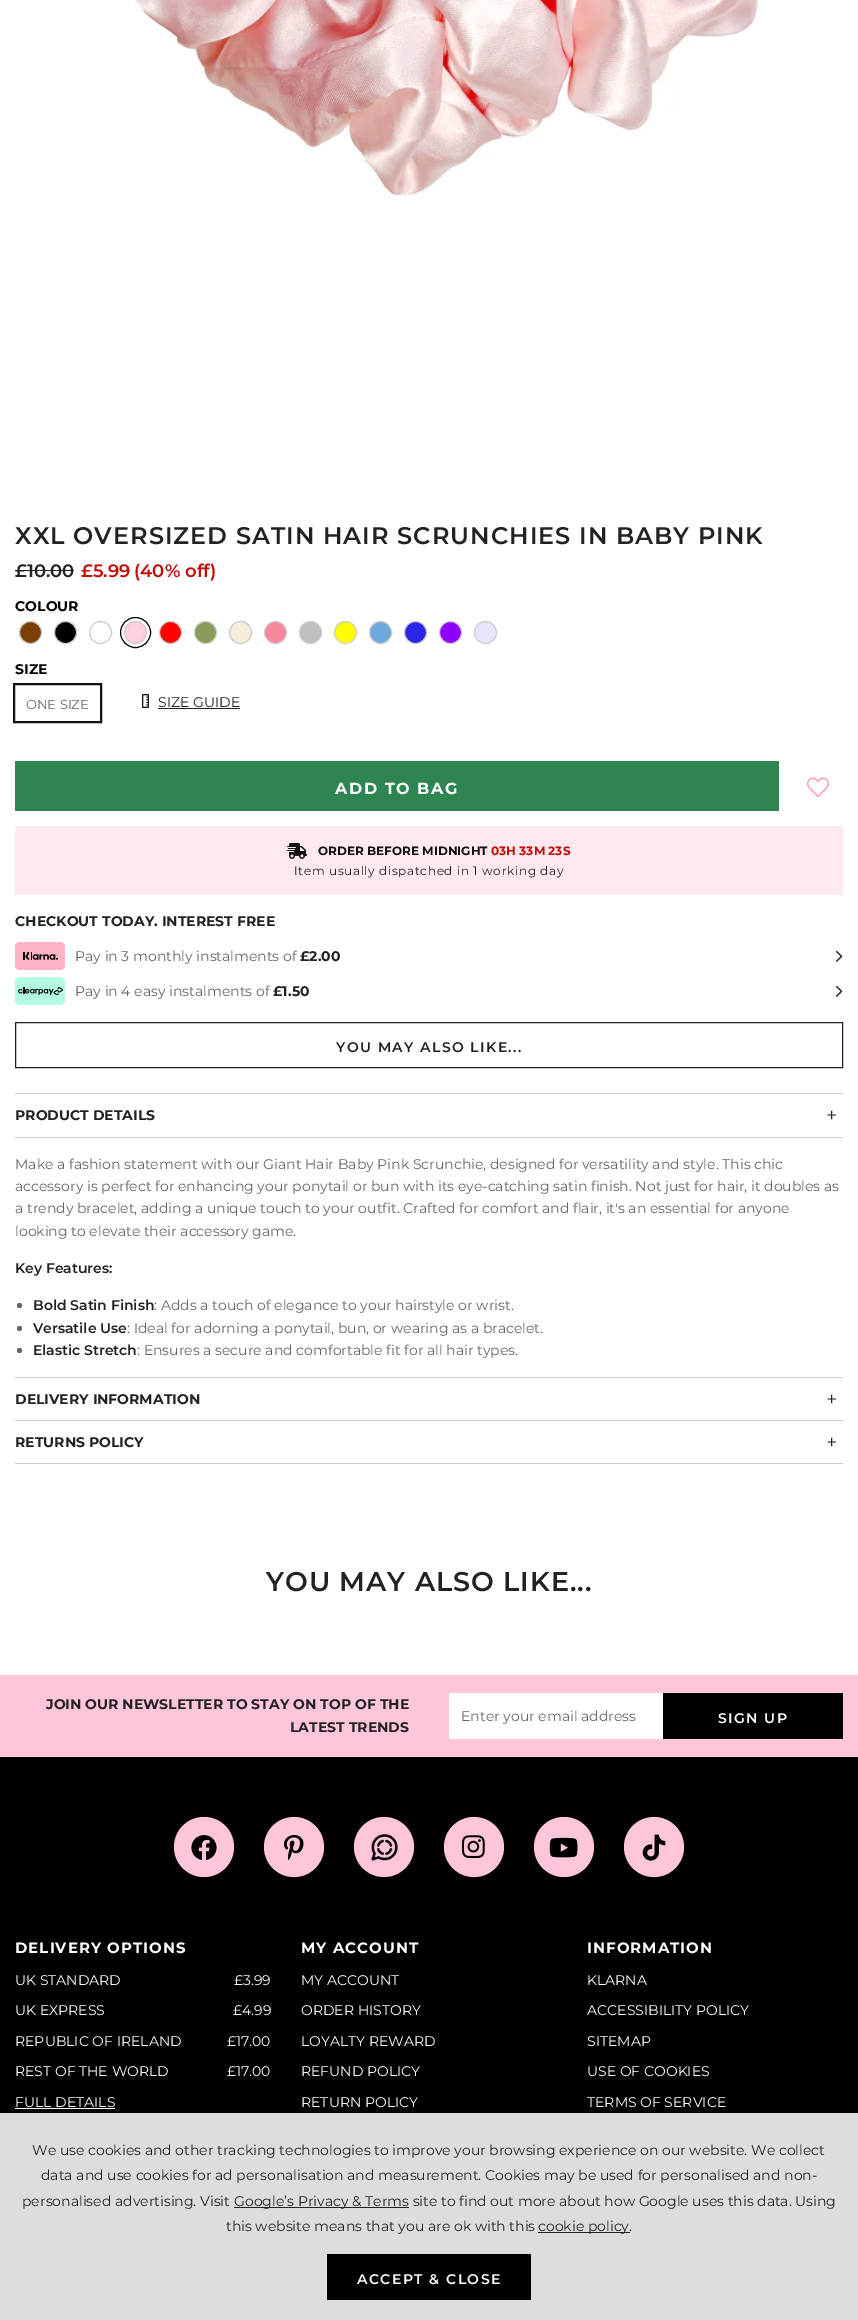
%!PS-Adobe-3.0
%%BoundingBox: 0 0 858 2320
%%LanguageLevel: 3
%%Pages: 1
%%EndComments
%%BeginProlog
/rrect { 5 dict begin { /r /h /w /y /x } { exch def } forall
  x r add y moveto x w add y 2 copy h add r arct x w add y h add x 1 index r arct
  x y h add x y r arct x y 2 copy exch w add exch r arct closepath end } def
/drawimage { 5 dict begin { /h /w /y /x /name } { exch def } forall
  gsave x y translate w h scale
  w h 8 [w 0 0 h 0 0] name (r) file false 3 colorimage grestore end } def
%%EndProlog
%%BeginSetup
<< /PageSize [858 2320] >> setpagedevice
%%EndSetup
%%Page: 1 1
0 2320 translate 1 -1 scale
4 setmiterlimit
1 setgray
0 0 858 2320 rectfill
(images/1.raw) 135 0 623 196 drawimage
0.133 setgray
15 570 59 1 rectfill
0.482 0.247 0 setrgbcolor
newpath 30.5 632.5 11 0 360 arc closepath gsave fill grestore
0.8 setgray
stroke
0 setgray
newpath 65.5 632.5 11 0 360 arc closepath gsave fill grestore
0.8 setgray
stroke
newpath 100.5 632.5 11 0 360 arc closepath stroke
0 setgray
newpath 135.5 632.5 15 0 360 arc closepath stroke
1 0.82 0.863 setrgbcolor
newpath 135.5 632.5 11 0 360 arc closepath gsave fill grestore
0.8 setgray
stroke
1 0 0 setrgbcolor
newpath 170.5 632.5 11 0 360 arc closepath gsave fill grestore
0.8 setgray
stroke
0.541 0.604 0.357 setrgbcolor
newpath 205.5 632.5 11 0 360 arc closepath gsave fill grestore
0.8 setgray
stroke
0.965 0.929 0.867 setrgbcolor
newpath 240.5 632.5 11 0 360 arc closepath gsave fill grestore
0.8 setgray
stroke
0.969 0.529 0.604 setrgbcolor
newpath 275.5 632.5 11 0 360 arc closepath gsave fill grestore
0.8 setgray
stroke
0.753 setgray
newpath 310.5 632.5 11 0 360 arc closepath gsave fill grestore
0.8 setgray
stroke
1 1 0 setrgbcolor
newpath 345.5 632.5 11 0 360 arc closepath gsave fill grestore
0.8 setgray
stroke
0.435 0.659 0.863 setrgbcolor
newpath 380.5 632.5 11 0 360 arc closepath gsave fill grestore
0.8 setgray
stroke
0.153 0.153 0.894 setrgbcolor
newpath 415.5 632.5 11 0 360 arc closepath gsave fill grestore
0.8 setgray
stroke
0.561 0 1 setrgbcolor
newpath 450.5 632.5 11 0 360 arc closepath gsave fill grestore
0.8 setgray
stroke
0.902 0.902 0.98 setrgbcolor
newpath 485.5 632.5 11 0 360 arc closepath gsave fill grestore
0.8 setgray
stroke
0.067 setgray
2 setlinewidth
14 684 87 38 rectstroke
(images/2.raw) 142 694 7 14 drawimage
0.133 setgray
158 708 82 1 rectfill
0.184 0.522 0.322 setrgbcolor
15 761 764 50 rectfill
(images/3.raw) 807 777 22 20 drawimage
1 0.914 0.945 setrgbcolor
15 826 828 69 rectfill
(images/4.raw) 287 843 20 16 drawimage
0.961 setgray
15 942 50 28 4 rrect fill
1 0.702 0.78 setrgbcolor
15 942 50 28 5 rrect fill
(images/5.raw) 23 952 35 8 drawimage
(images/6.raw) 836 950 7 12 drawimage
0.961 setgray
15 977 50 28 4 rrect fill
0.698 0.988 0.894 setrgbcolor
15 977 50 28 5 rrect fill
(images/7.raw) 18 987 45 8 drawimage
(images/6.raw) 836 985 7 12 drawimage
0.133 setgray
1 setlinewidth
15.5 1022.5 827 45 rectstroke
0.8 setgray
15 1093 828 1 rectfill
15 1137 828 1 rectfill
15 1377 828 1 rectfill
0.4 setgray
newpath 19.5 1305.5 2.5 0 360 arc closepath fill
newpath 19.5 1328.5 2.5 0 360 arc closepath fill
newpath 19.5 1350.5 2.5 0 360 arc closepath fill
0.8 setgray
15 1420 828 1 rectfill
15 1463 828 1 rectfill
0 setgray
0 1757 858 356 rectfill
1 0.773 0.859 setrgbcolor
0 1675 858 82 rectfill
1 setgray
449 1693 214 46 rectfill
0 setgray
663 1693 180 46 rectfill
1 0.773 0.859 setrgbcolor
newpath 204 1847 30 0 360 arc closepath fill
(images/8.raw) 191 1835 26 25 drawimage
newpath 294 1847 30 0 360 arc closepath fill
(images/9.raw) 284 1834 20 27 drawimage
newpath 384 1847 30 0 360 arc closepath fill
(images/10.raw) 371 1834 27 27 drawimage
newpath 474 1847 30 0 360 arc closepath fill
(images/11.raw) 462 1835 23 23 drawimage
newpath 564 1847 30 0 360 arc closepath fill
(images/12.raw) 549 1837 29 21 drawimage
newpath 654 1847 30 0 360 arc closepath fill
(images/13.raw) 642 1834 24 27 drawimage
1 setgray
15 2108 100 1 rectfill
0.867 setgray
0 2113 858 207 rectfill
0.133 setgray
234 2207 175 1 rectfill
538 2232 92 1 rectfill
0 setgray
327 2254 204 46 rectfill
/Montserrat-Thin [24 0 0 -24 0 0] selectfont
0.133 setgray
15 544 moveto 1 0 (XXL OVERSIZED SATIN HAIR SCRUNCHIES IN BABY PINK) ashow
/Montserrat-Thin [18 0 0 -18 0 0] selectfont
15 577 moveto (£10.00) show
0.765 0.047 0.024 setrgbcolor
81 577 moveto (£5.99) show
134 577 moveto (\(40% off\)) show
/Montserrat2-Thin [14 0 0 -14 0 0] selectfont
0 setgray
15 611 moveto (COLOUR) show
15 674 moveto (SIZE) show
/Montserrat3-Thin [13 0 0 -13 0 0] selectfont
0.4 setgray
26 709 moveto (ONE SIZE) show
/Montserrat3-Thin [14 0 0 -14 0 0] selectfont
0.133 setgray
158 707 moveto (SIZE GUIDE) show
/Montserrat2-Thin [16 0 0 -16 0 0] selectfont
1 setgray
335 794 moveto 1.6 0 (ADD TO BAG) ashow
/Montserrat2-Thin [12 0 0 -12 0 0] selectfont
0.067 setgray
318 855 moveto (ORDER BEFORE MIDNIGHT) show
0.765 0.047 0.024 setrgbcolor
491 855 moveto (03H 33M 23S) show
/Montserrat3-Thin [12 0 0 -12 0 0] selectfont
0.133 setgray
294 875 moveto 0.65 0 (Item usually dispatched in 1 working day) ashow
/Montserrat2-Thin [14 0 0 -14 0 0] selectfont
15 926 moveto (CHECKOUT TODAY. INTEREST FREE) show
/Montserrat3-Thin [14 0 0 -14 0 0] selectfont
0.4 setgray
75 961 moveto (Pay in 3 monthly instalments of) show
/Montserrat2-Thin [14 0 0 -14 0 0] selectfont
0.133 setgray
300 961 moveto (£2.00) show
/Montserrat3-Thin [14 0 0 -14 0 0] selectfont
0.4 setgray
75 996 moveto (Pay in 4 easy instalments of) show
/Montserrat2-Thin [14 0 0 -14 0 0] selectfont
0.133 setgray
273 996 moveto (£1.50) show
/Montserrat-Thin [14 0 0 -14 0 0] selectfont
336 1052 moveto 1.4 0 (YOU MAY ALSO LIKE...) ashow
/Montserrat2-Thin [14 0 0 -14 0 0] selectfont
15 1120 moveto (PRODUCT DETAILS) show
/Montserrat3-Thin [20 0 0 -20 0 0] selectfont
826 1122 moveto (+) show
/Montserrat3-Thin [14 0 0 -14 0 0] selectfont
0.4 setgray
15 1169 moveto (Make a fashion statement with our Giant Hair Baby Pink Scrunchie, designed for versatility and style. This chic) show
15 1191 moveto (accessory is perfect for enhancing your ponytail or bun with its eye-catching satin finish. Not just for hair, it doubles as) show
15 1213 moveto (a trendy bracelet, adding a unique touch to your outfit. Crafted for comfort and flair, it's an essential for anyone) show
15 1236 moveto (looking to elevate their accessory game.) show
/Montserrat-Thin [14 0 0 -14 0 0] selectfont
0.133 setgray
15 1273 moveto (Key Features:) show
33 1310 moveto (Bold Satin Finish) show
/Montserrat3-Thin [14 0 0 -14 0 0] selectfont
0.4 setgray
154 1310 moveto (: Adds a touch of elegance to your hairstyle or wrist.) show
/Montserrat-Thin [14 0 0 -14 0 0] selectfont
0.133 setgray
33 1333 moveto (Versatile Use) show
/Montserrat3-Thin [14 0 0 -14 0 0] selectfont
0.4 setgray
127 1333 moveto (: Ideal for adorning a ponytail, bun, or wearing as a bracelet.) show
/Montserrat-Thin [14 0 0 -14 0 0] selectfont
0.133 setgray
33 1355 moveto (Elastic Stretch) show
/Montserrat3-Thin [14 0 0 -14 0 0] selectfont
0.4 setgray
137 1355 moveto (: Ensures a secure and comfortable fit for all hair types.) show
/Montserrat2-Thin [14 0 0 -14 0 0] selectfont
0.133 setgray
15 1404 moveto (DELIVERY INFORMATION) show
/Montserrat3-Thin [20 0 0 -20 0 0] selectfont
826 1406 moveto (+) show
/Montserrat2-Thin [14 0 0 -14 0 0] selectfont
15 1447 moveto (RETURNS POLICY) show
/Montserrat3-Thin [20 0 0 -20 0 0] selectfont
826 1449 moveto (+) show
/Montserrat-Thin [27 0 0 -27 0 0] selectfont
266 1591 moveto 1 0 (YOU MAY ALSO LIKE...) ashow
/Montserrat2-Thin [14 0 0 -14 0 0] selectfont
46 1709 moveto (JOIN OUR NEWSLETTER TO STAY ON TOP OF THE) show
290 1732 moveto (LATEST TRENDS) show
/Montserrat3-Thin [14 0 0 -14 0 0] selectfont
0.4 setgray
461 1721 moveto (Enter your email address) show
/Montserrat-Thin [14 0 0 -14 0 0] selectfont
1 setgray
718 1723 moveto 1.4 0 (SIGN UP) ashow
/Montserrat2-Thin [15 0 0 -15 0 0] selectfont
15 1953 moveto 1 0 (DELIVERY OPTIONS) ashow
/Montserrat3-Thin [14 0 0 -14 0 0] selectfont
15 1985 moveto (UK STANDARD) show
234 1985 moveto (£3.99) show
15 2015 moveto (UK EXPRESS) show
233 2015 moveto (£4.99) show
15 2046 moveto (REPUBLIC OF IRELAND) show
227 2046 moveto (£17.00) show
15 2076 moveto (REST OF THE WORLD) show
227 2076 moveto (£17.00) show
15 2107 moveto (FULL DETAILS) show
/Montserrat2-Thin [15 0 0 -15 0 0] selectfont
301 1953 moveto 1 0 (MY ACCOUNT) ashow
/Montserrat3-Thin [14 0 0 -14 0 0] selectfont
301 1985 moveto (MY ACCOUNT) show
301 2015 moveto (ORDER HISTORY) show
301 2046 moveto (LOYALTY REWARD) show
301 2076 moveto (REFUND POLICY) show
301 2107 moveto (RETURN POLICY) show
/Montserrat2-Thin [15 0 0 -15 0 0] selectfont
587 1953 moveto 1 0 (INFORMATION) ashow
/Montserrat3-Thin [14 0 0 -14 0 0] selectfont
587 1985 moveto (KLARNA) show
587 2015 moveto (ACCESSIBILITY POLICY) show
587 2046 moveto (SITEMAP) show
587 2076 moveto (USE OF COOKIES) show
587 2107 moveto (TERMS OF SERVICE) show
0.133 setgray
32 2155 moveto (We use cookies and other tracking technologies to improve your browsing experience on our website. We collect) show
41 2180 moveto (data and use cookies for ad personalisation and measurement. Cookies may be used for personalised and non-) show
22 2206 moveto (personalised advertising. Visit) show
234 2206 moveto (Google’s Privacy & Terms site to find out more about how Google uses this data. Using) show
226 2231 moveto (this website means that you are ok with this) show
538 2231 moveto (cookie policy.) show
/Montserrat-Thin [14 0 0 -14 0 0] selectfont
1 setgray
357 2284 moveto 1.4 0 (ACCEPT & CLOSE) ashow
showpage
%%EOF
